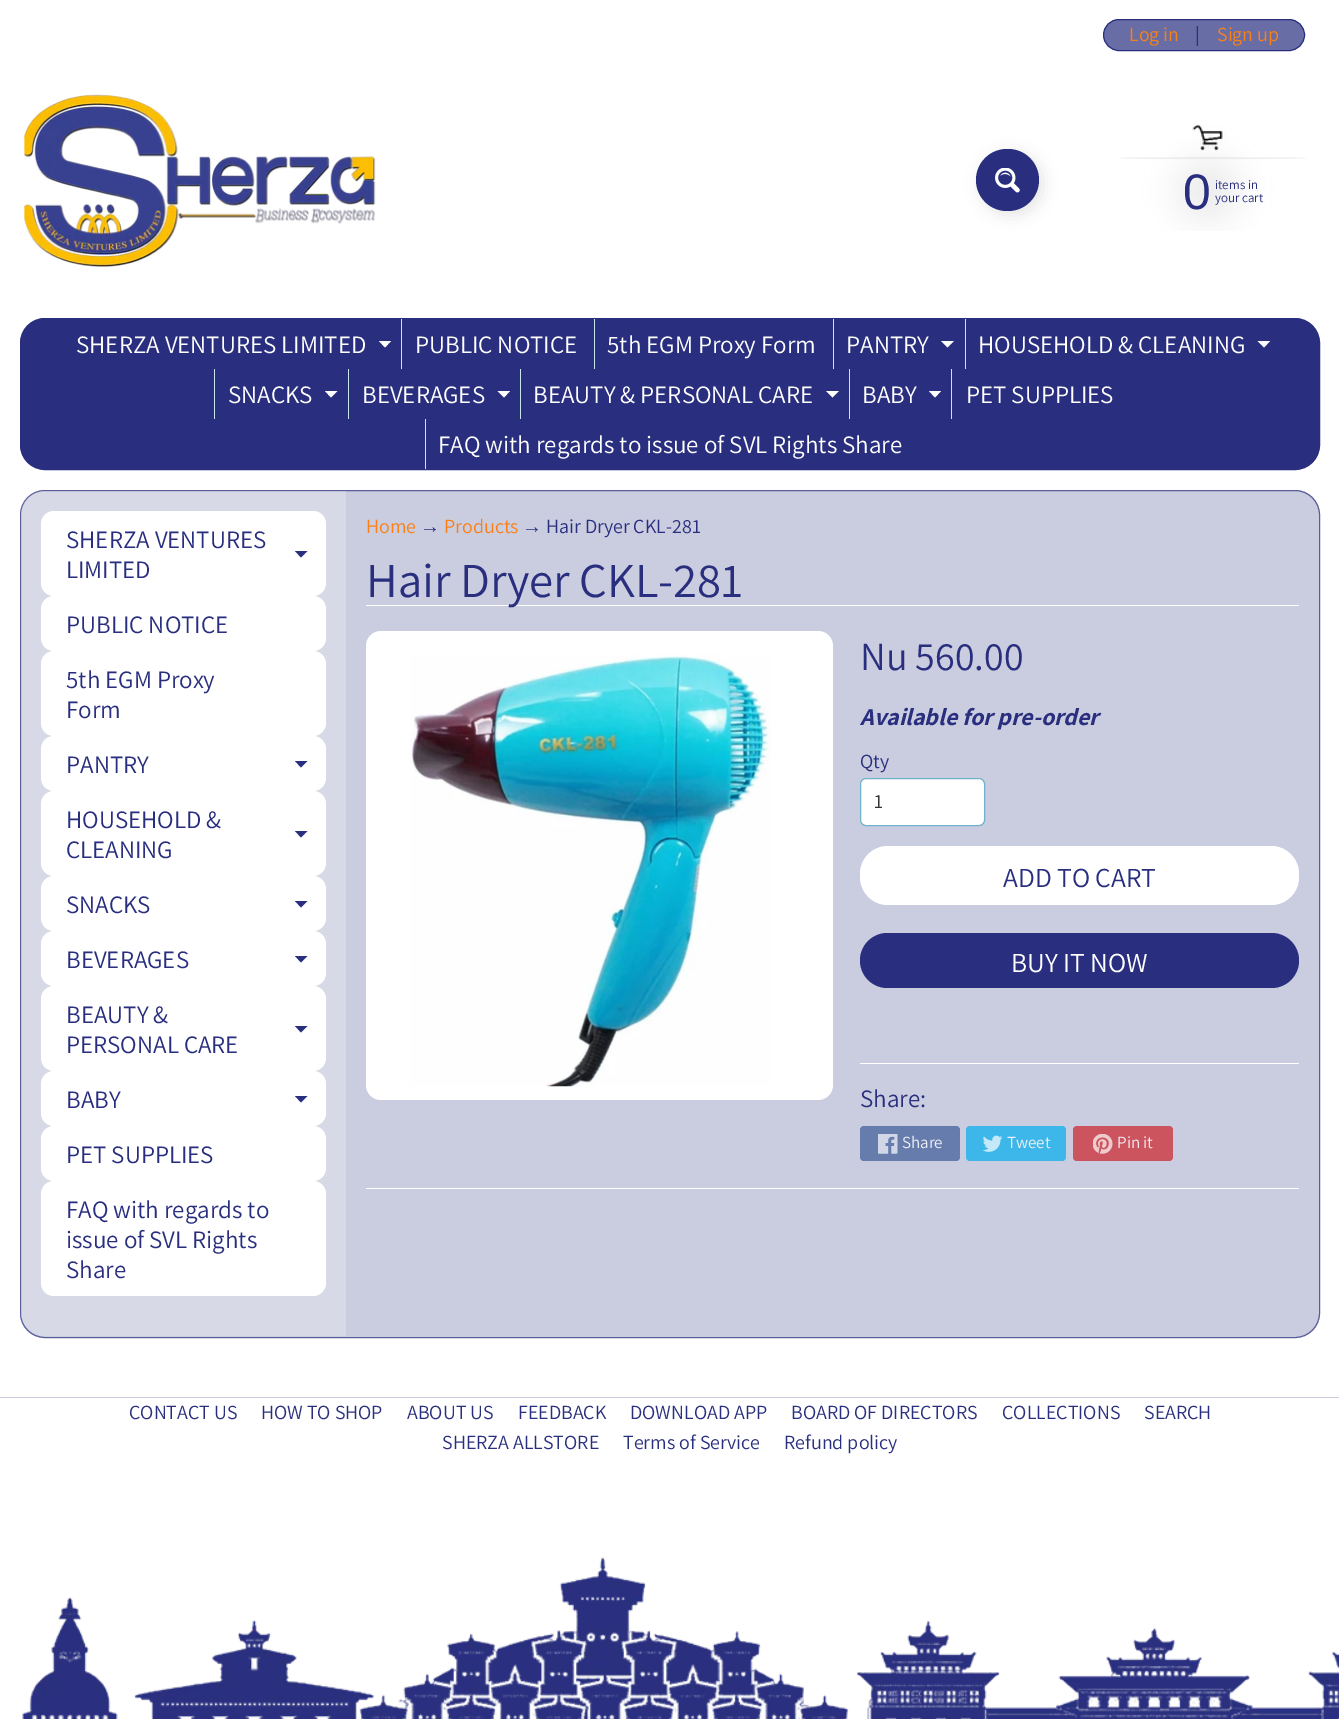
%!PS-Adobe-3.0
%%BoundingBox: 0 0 1339 1719
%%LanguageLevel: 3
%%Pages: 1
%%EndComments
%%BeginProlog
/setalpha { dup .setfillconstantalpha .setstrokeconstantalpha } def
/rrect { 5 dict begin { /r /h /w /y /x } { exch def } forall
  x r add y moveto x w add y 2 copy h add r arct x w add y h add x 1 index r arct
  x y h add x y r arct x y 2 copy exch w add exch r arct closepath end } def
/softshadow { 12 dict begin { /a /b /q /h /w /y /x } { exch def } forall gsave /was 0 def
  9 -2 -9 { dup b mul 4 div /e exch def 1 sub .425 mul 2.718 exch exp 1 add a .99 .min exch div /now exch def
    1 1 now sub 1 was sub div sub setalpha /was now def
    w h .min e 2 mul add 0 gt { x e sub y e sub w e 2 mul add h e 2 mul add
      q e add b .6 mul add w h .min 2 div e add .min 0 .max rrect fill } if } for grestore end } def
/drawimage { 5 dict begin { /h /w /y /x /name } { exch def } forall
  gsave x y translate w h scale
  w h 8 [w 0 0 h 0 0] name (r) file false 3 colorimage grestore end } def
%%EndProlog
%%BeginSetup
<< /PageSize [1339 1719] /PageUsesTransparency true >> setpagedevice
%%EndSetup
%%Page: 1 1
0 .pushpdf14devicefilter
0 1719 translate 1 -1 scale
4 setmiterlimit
1 setgray
0 0 1339 1719 rectfill
(images/1.raw) 24 94 352 173 drawimage
0.412 0.427 0.647 setrgbcolor
1103.5 19.5 201 31 15.5 rrect gsave fill grestore
0.161 0.184 0.494 setrgbcolor
stroke
0 setgray
980 153 63 62 31 7.5 0.1 softshadow
0.161 0.184 0.494 setrgbcolor
976 149 63 62 31 rrect fill
(images/2.raw) 995 168 25 25 drawimage
(images/3.raw) 1119 124 188 107 drawimage
20.5 318.5 1299 151 24.5 rrect gsave fill grestore
stroke
1 setgray
newpath 379 341 moveto 391 341 lineto 385 347.5 lineto closepath fill
0.765 0.906 0.918 setrgbcolor
401 319 1 50 rectfill
594 319 1 50 rectfill
833 319 1 50 rectfill
1 setgray
newpath 941 341 moveto 954 341 lineto 947.5 347.5 lineto closepath fill
0.765 0.906 0.918 setrgbcolor
965 319 1 50 rectfill
1 setgray
newpath 1257.5 341 moveto 1270 341 lineto 1264 347.5 lineto closepath fill
0.765 0.906 0.918 setrgbcolor
214 369 1 50 rectfill
1 setgray
newpath 325 391 moveto 337.5 391 lineto 331 397.5 lineto closepath fill
0.765 0.906 0.918 setrgbcolor
348 369 1 50 rectfill
1 setgray
newpath 497.5 391 moveto 510 391 lineto 504 397.5 lineto closepath fill
0.765 0.906 0.918 setrgbcolor
520 369 1 50 rectfill
1 setgray
newpath 826 391 moveto 839 391 lineto 832.5 397.5 lineto closepath fill
0.765 0.906 0.918 setrgbcolor
849 369 1 50 rectfill
1 setgray
newpath 929 391 moveto 941 391 lineto 935 397.5 lineto closepath fill
0.765 0.906 0.918 setrgbcolor
951 369 1 50 rectfill
425 419 1 50 rectfill
0.792 0.8 0.875 setrgbcolor
20 490 1300 848 25 rrect fill
0.7 setalpha
0.161 0.184 0.494 setrgbcolor
20.5 490.5 1299 847 24.5 rrect stroke
0.25 setalpha
1 setgray
newpath 45 491 moveto 346 491 lineto 346 1336 lineto 45 1336 lineto 31.5 1336 21 1325.5 21 1312 curveto 21 515 lineto 21 501.5 31.5 491 45 491 curveto closepath fill
1 setalpha
41 511 285 85 13 rrect fill
0.161 0.184 0.494 setrgbcolor
newpath 295 551 moveto 307.5 551 lineto 301 557.5 lineto closepath fill
1 setgray
41 596 285 55 13 rrect fill
41 651 285 85 13 rrect fill
41 736 285 55 13 rrect fill
0.161 0.184 0.494 setrgbcolor
newpath 295 761 moveto 307.5 761 lineto 301 767.5 lineto closepath fill
1 setgray
41 791 285 85 13 rrect fill
0.161 0.184 0.494 setrgbcolor
newpath 295 831 moveto 307.5 831 lineto 301 837.5 lineto closepath fill
1 setgray
41 876 285 55 13 rrect fill
0.161 0.184 0.494 setrgbcolor
newpath 295 901 moveto 307.5 901 lineto 301 907.5 lineto closepath fill
1 setgray
41 931 285 55 13 rrect fill
0.161 0.184 0.494 setrgbcolor
newpath 295 956 moveto 307.5 956 lineto 301 962.5 lineto closepath fill
1 setgray
41 986 285 85 13 rrect fill
0.161 0.184 0.494 setrgbcolor
newpath 295 1026 moveto 307.5 1026 lineto 301 1032.5 lineto closepath fill
1 setgray
41 1071 285 55 13 rrect fill
0.161 0.184 0.494 setrgbcolor
newpath 295 1096 moveto 307.5 1096 lineto 301 1102.5 lineto closepath fill
1 setgray
41 1126 285 55 13 rrect fill
41 1181 285 115 13 rrect fill
366 605 933 1 rectfill
366 631 467 469 15 rrect fill
(images/4.raw) 410 655 361 432 drawimage
860.5 778.5 124 47 5.5 rrect gsave fill grestore
0.439 0.694 0.8 setrgbcolor
stroke
1 setgray
860 846 439 59 28 rrect fill
0.161 0.184 0.494 setrgbcolor
860 933 439 55 27.5 rrect fill
1 setgray
860 1063 439 1 rectfill
0.4 0.486 0.678 setrgbcolor
860 1126 100 35 4 rrect fill
(images/5.raw) 878 1134 20 20 drawimage
0.239 0.714 0.914 setrgbcolor
966 1126 100 35 4 rrect fill
(images/6.raw) 983 1135 20 17 drawimage
0.796 0.329 0.369 setrgbcolor
1073 1126 100 35 4 rrect fill
(images/7.raw) 1093 1134 20 20 drawimage
1 setgray
366 1188 933 1 rectfill
(images/8.raw) 0 1397 1339 322 drawimage
/Assistant-Regular [20 0 0 -20 0 0] selectfont
0.98 0.502 0.086 setrgbcolor
1129 41 moveto (Log in) show
0.161 0.184 0.494 setrgbcolor
1195 41 moveto (|) show
0.98 0.502 0.086 setrgbcolor
1217 41 moveto (Sign up) show
/LiberationSans-Regular [50 0 0 -50 0 0] selectfont
0.161 0.184 0.494 setrgbcolor
1183 209 moveto (0) show
/Assistant-Regular [13 0 0 -13 0 0] selectfont
1215 189 moveto (items in) show
1215 202 moveto (your cart) show
/Assistant-Regular [25 0 0 -25 0 0] selectfont
1 setgray
76 353 moveto (SHERZA VENTURES LIMITED) show
415 353 moveto (PUBLIC NOTICE) show
607 353 moveto (5th EGM Proxy Form) show
846 353 moveto (PANTRY) show
978 353 moveto (HOUSEHOLD & CLEANING) show
228 403 moveto (SNACKS) show
362 403 moveto (BEVERAGES) show
533 403 moveto (BEAUTY & PERSONAL CARE) show
862 403 moveto (BABY) show
966 403 moveto (PET SUPPLIES) show
438 453 moveto (FAQ with regards to issue of SVL Rights Share) show
0.161 0.184 0.494 setrgbcolor
66 548 moveto (SHERZA VENTURES) show
66 578 moveto (LIMITED) show
66 633 moveto (PUBLIC NOTICE) show
66 688 moveto (5th EGM Proxy) show
66 718 moveto (Form) show
66 773 moveto (PANTRY) show
66 828 moveto (HOUSEHOLD &) show
66 858 moveto (CLEANING) show
66 913 moveto (SNACKS) show
66 968 moveto (BEVERAGES) show
66 1023 moveto (BEAUTY &) show
66 1053 moveto (PERSONAL CARE) show
66 1108 moveto (BABY) show
66 1163 moveto (PET SUPPLIES) show
66 1218 moveto (FAQ with regards to) show
66 1248 moveto (issue of SVL Rights) show
66 1278 moveto (Share) show
/Assistant-Regular [20 0 0 -20 0 0] selectfont
0.98 0.502 0.086 setrgbcolor
366 533 moveto (Home) show
/LiberationSans-Regular [20 0 0 -20 0 0] selectfont
0.161 0.184 0.494 setrgbcolor
420 533 moveto (→) show
/Assistant-Regular [20 0 0 -20 0 0] selectfont
0.98 0.502 0.086 setrgbcolor
444 533 moveto (Products) show
/LiberationSans-Regular [20 0 0 -20 0 0] selectfont
0.161 0.184 0.494 setrgbcolor
522 533 moveto (→) show
/Assistant-Regular [20 0 0 -20 0 0] selectfont
546 533 moveto (Hair Dryer CKL-281) show
/Assistant-Regular [48.75 0 0 -48.75 0 0] selectfont
366 597 moveto (Hair Dryer CKL-281) show
/Assistant-Regular [40 0 0 -40 0 0] selectfont
860 670 moveto (Nu 560.00) show
/Assistant-BoldItalic [24 0 0 -24 0 0] selectfont
860 725 moveto (Available for pre-order) show
/Assistant-Regular [20 0 0 -20 0 0] selectfont
860 768 moveto (Qty) show
0.2 setgray
874 808 moveto (1) show
/Assistant-Regular [27.5 0 0 -27.5 0 0] selectfont
0.161 0.184 0.494 setrgbcolor
1003 887 moveto (ADD TO CART) show
1 setgray
1011 972 moveto (BUY IT NOW) show
/Assistant-Regular [25 0 0 -25 0 0] selectfont
0.161 0.184 0.494 setrgbcolor
860 1107 moveto (Share:) show
/Assistant-Regular [17 0 0 -17 0 0] selectfont
0.937 0.941 0.961 setrgbcolor
902 1148 moveto (Share) show
1007 1148 moveto (Tweet) show
1117 1148 moveto (Pin it) show
/Assistant-Regular [20 0 0 -20 0 0] selectfont
0.161 0.184 0.494 setrgbcolor
129 1419 moveto (CONTACT US) show
261 1419 moveto (HOW TO SHOP) show
407 1419 moveto (ABOUT US) show
518 1419 moveto (FEEDBACK) show
630 1419 moveto (DOWNLOAD APP) show
791 1419 moveto (BOARD OF DIRECTORS) show
1002 1419 moveto (COLLECTIONS) show
1144 1419 moveto (SEARCH) show
442 1449 moveto (SHERZA ALLSTORE) show
623 1449 moveto (Terms of Service) show
784 1449 moveto (Refund policy) show
.poppdf14devicefilter showpage
%%EOF
